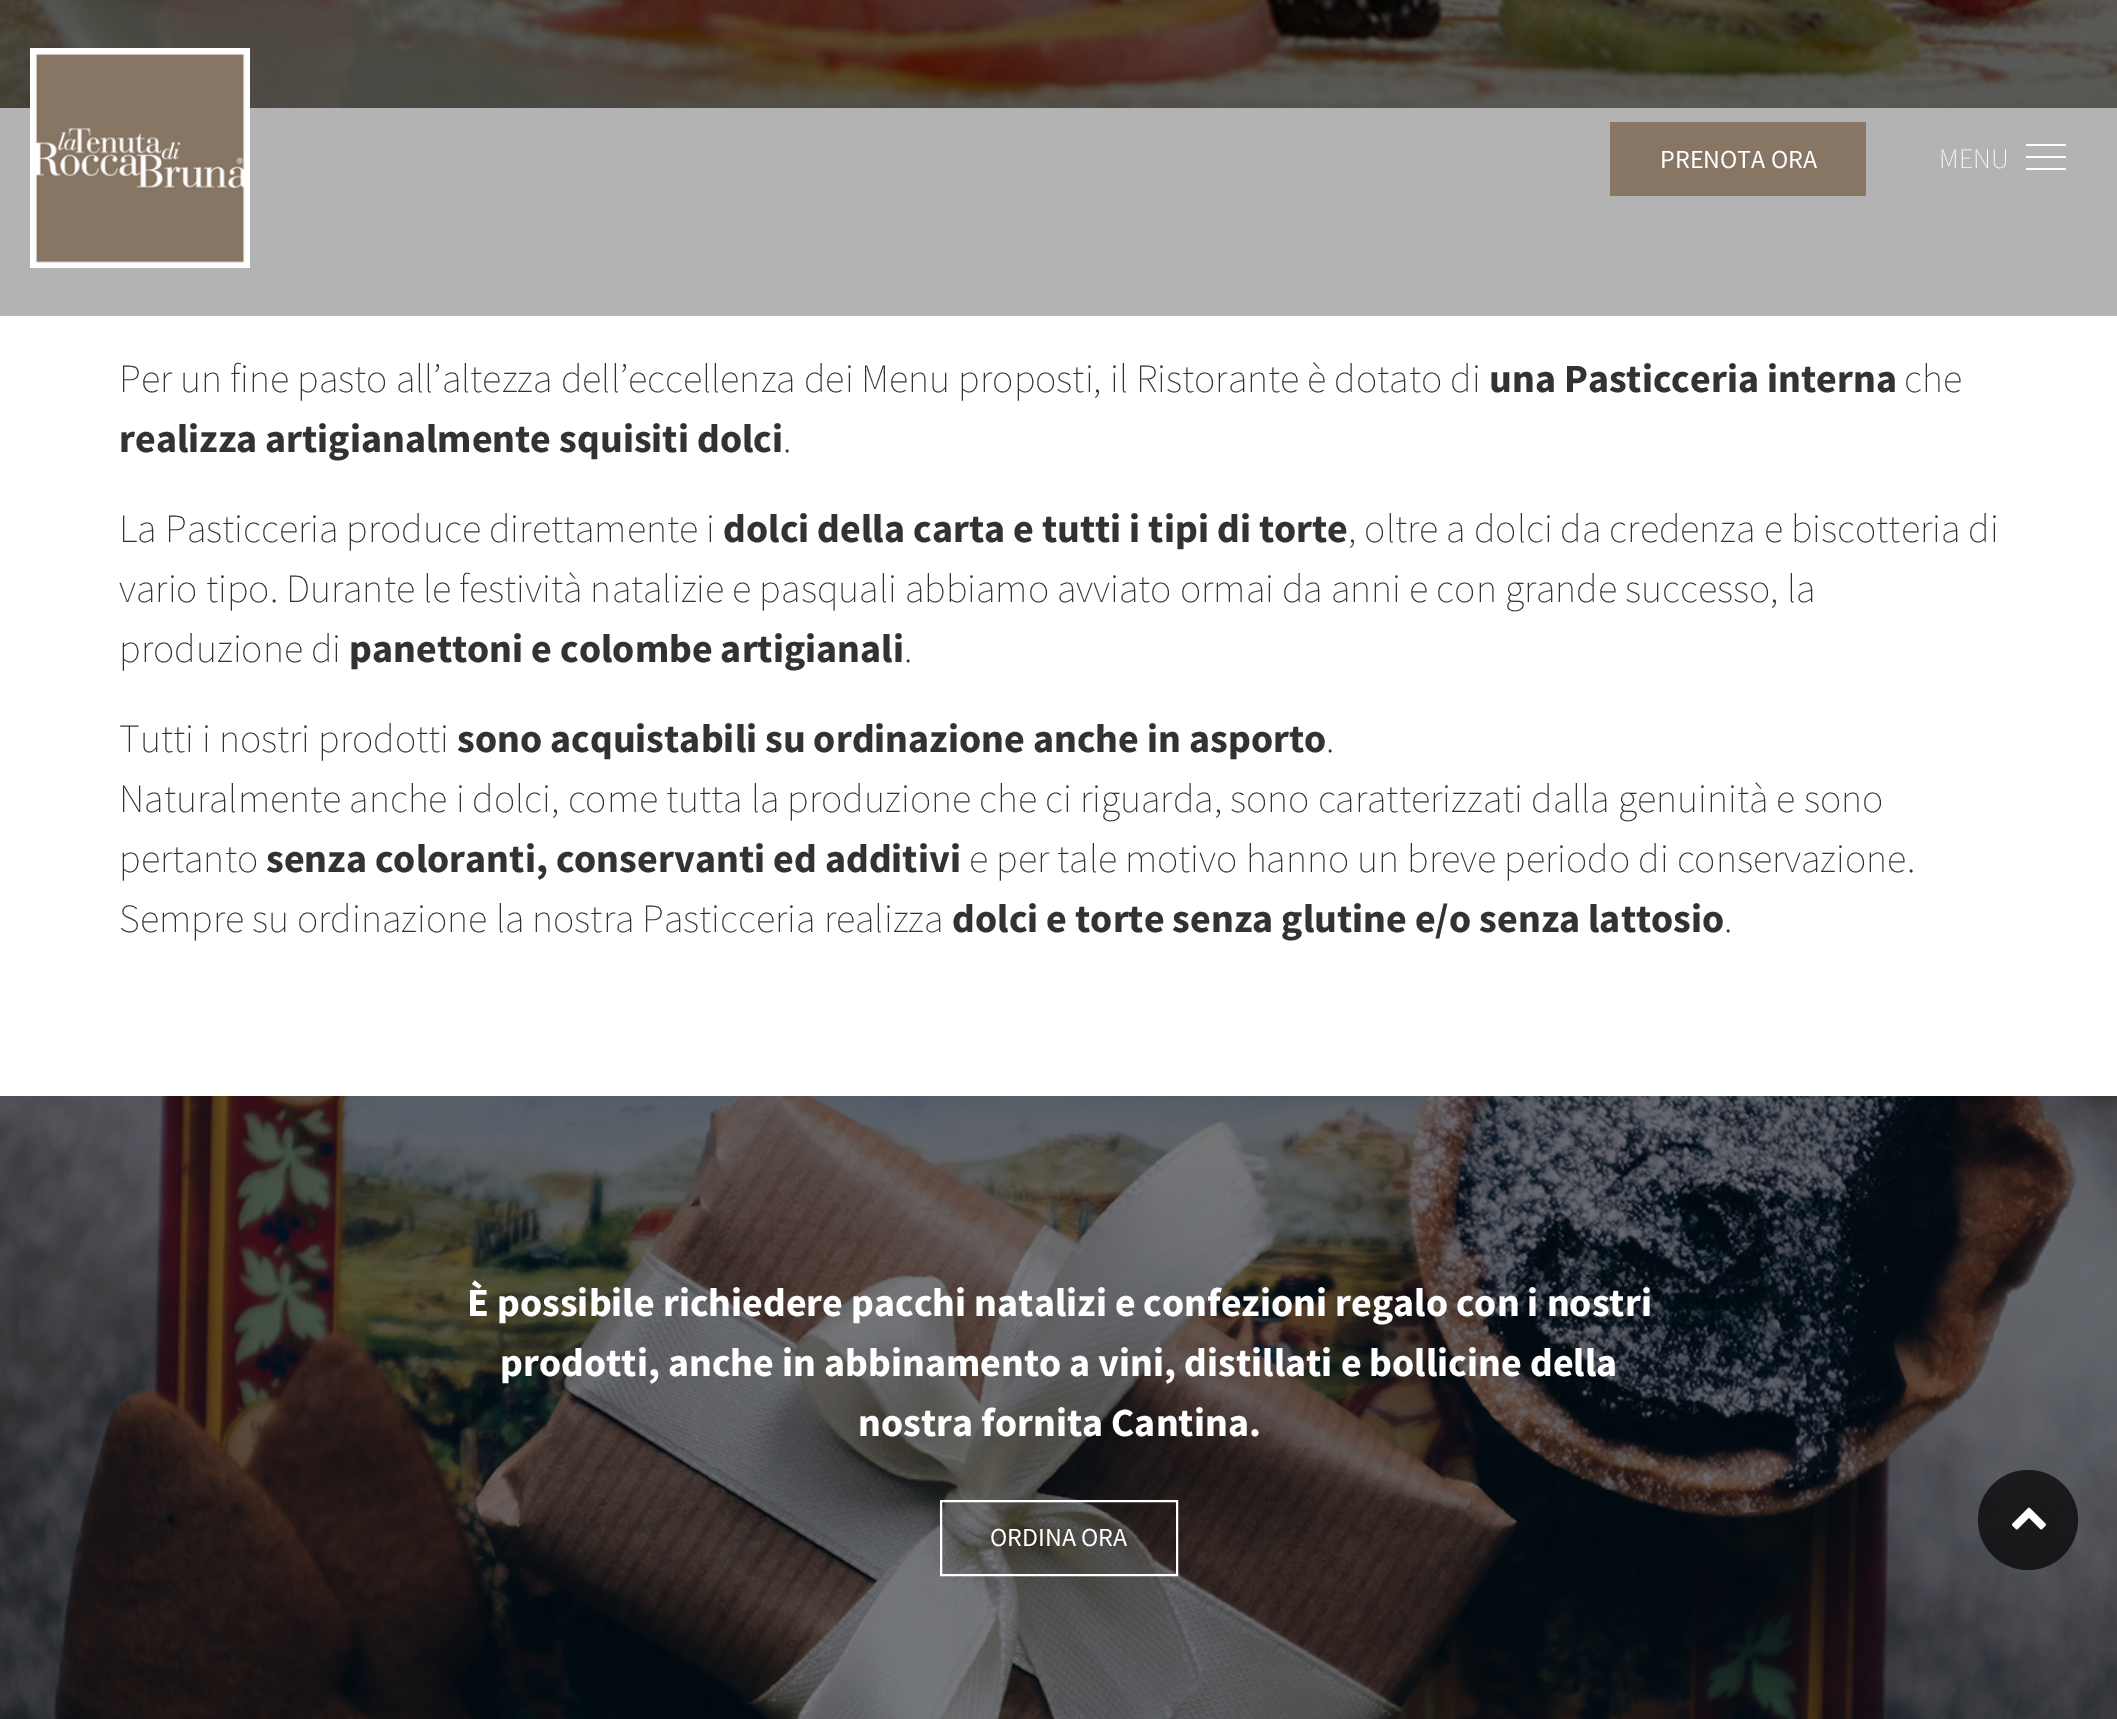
%!PS-Adobe-3.0
%%BoundingBox: 0 0 2117 1719
%%LanguageLevel: 3
%%Pages: 1
%%EndComments
%%BeginProlog
/setalpha { dup .setfillconstantalpha .setstrokeconstantalpha } def
/drawimage { 5 dict begin { /h /w /y /x /name } { exch def } forall
  gsave x y translate w h scale
  w h 8 [w 0 0 h 0 0] name (r) file false 3 colorimage grestore end } def
%%EndProlog
%%BeginSetup
<< /PageSize [2117 1719] /PageUsesTransparency true >> setpagedevice
%%EndSetup
%%Page: 1 1
0 .pushpdf14devicefilter
0 1719 translate 1 -1 scale
4 setmiterlimit
1 setgray
0 0 2117 1719 rectfill
(images/1.raw) 0 0 2117 108 drawimage
0.702 setgray
0 108 2117 208 rectfill
(images/2.raw) 30 48 220 220 drawimage
0.533 0.463 0.396 setrgbcolor
1610 122 256 74 rectfill
1 setgray
2026 144 40 2 rectfill
2026 156 40 2 rectfill
2026 168 40 2 rectfill
(images/3.raw) 0 1096 2117 623 drawimage
2 setlinewidth
941 1501 236 74 rectstroke
0.7 setalpha
0 setgray
newpath 2028 1520 50 0 360 arc closepath fill
1 setalpha
(images/4.raw) 2011 1507 36 23 drawimage
/SourceSansPro-Regular [26 0 0 -26 0 0] selectfont
1 setgray
1660 168 moveto (PRENOTA ORA) show
/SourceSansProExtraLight-ExtraLight [28 0 0 -28 0 0] selectfont
1939 168 moveto (MENU) show
/SourceSansProExtraLight-ExtraLight [40 0 0 -40 0 0] selectfont
0.196 setgray
119 392 moveto (Per un fine pasto all’altezza dell’eccellenza dei Menu proposti, il Ristorante è dotato di) show
/SourceSansPro-Bold [40 0 0 -40 0 0] selectfont
1489 392 moveto (una Pasticceria interna) show
/SourceSansProExtraLight-ExtraLight [40 0 0 -40 0 0] selectfont
1904 392 moveto (che) show
/SourceSansPro-Bold [40 0 0 -40 0 0] selectfont
119 452 moveto (realizza artigianalmente squisiti dolci) show
/SourceSansProExtraLight-ExtraLight [40 0 0 -40 0 0] selectfont
783 452 moveto (.) show
119 542 moveto (La Pasticceria produce direttamente i) show
/SourceSansPro-Bold [40 0 0 -40 0 0] selectfont
723 542 moveto (dolci della carta e tutti i tipi di torte) show
/SourceSansProExtraLight-ExtraLight [40 0 0 -40 0 0] selectfont
1348 542 moveto (, oltre a dolci da credenza e biscotteria di) show
119 602 moveto (vario tipo. Durante le festività natalizie e pasquali abbiamo avviato ormai da anni e con grande successo, la) show
119 662 moveto (produzione di) show
/SourceSansPro-Bold [40 0 0 -40 0 0] selectfont
349 662 moveto (panettoni e colombe artigianali) show
/SourceSansProExtraLight-ExtraLight [40 0 0 -40 0 0] selectfont
904 662 moveto (.) show
119 752 moveto (Tutti i nostri prodotti) show
/SourceSansPro-Bold [40 0 0 -40 0 0] selectfont
457 752 moveto (sono acquistabili su ordinazione anche in asporto) show
/SourceSansProExtraLight-ExtraLight [40 0 0 -40 0 0] selectfont
1326 752 moveto (.) show
119 812 moveto (Naturalmente anche i dolci, come tutta la produzione che ci riguarda, sono caratterizzati dalla genuinità e sono) show
119 872 moveto (pertanto) show
/SourceSansPro-Bold [40 0 0 -40 0 0] selectfont
266 872 moveto (senza coloranti, conservanti ed additivi) show
/SourceSansProExtraLight-ExtraLight [40 0 0 -40 0 0] selectfont
969 872 moveto (e per tale motivo hanno un breve periodo di conservazione.) show
119 932 moveto (Sempre su ordinazione la nostra Pasticceria realizza) show
/SourceSansPro-Bold [40 0 0 -40 0 0] selectfont
952 932 moveto (dolci e torte senza glutine e/o senza lattosio) show
/SourceSansProExtraLight-ExtraLight [40 0 0 -40 0 0] selectfont
1724 932 moveto (.) show
/SourceSansPro-Bold [40 0 0 -40 0 0] selectfont
1 setgray
467 1316 moveto (È possibile richiedere pacchi natalizi e confezioni regalo con i nostri) show
500 1376 moveto (prodotti, anche in abbinamento a vini, distillati e bollicine della) show
858 1436 moveto (nostra fornita Cantina.) show
/SourceSansPro-Regular [26 0 0 -26 0 0] selectfont
990 1546 moveto (ORDINA ORA) show
.poppdf14devicefilter showpage
%%EOF
